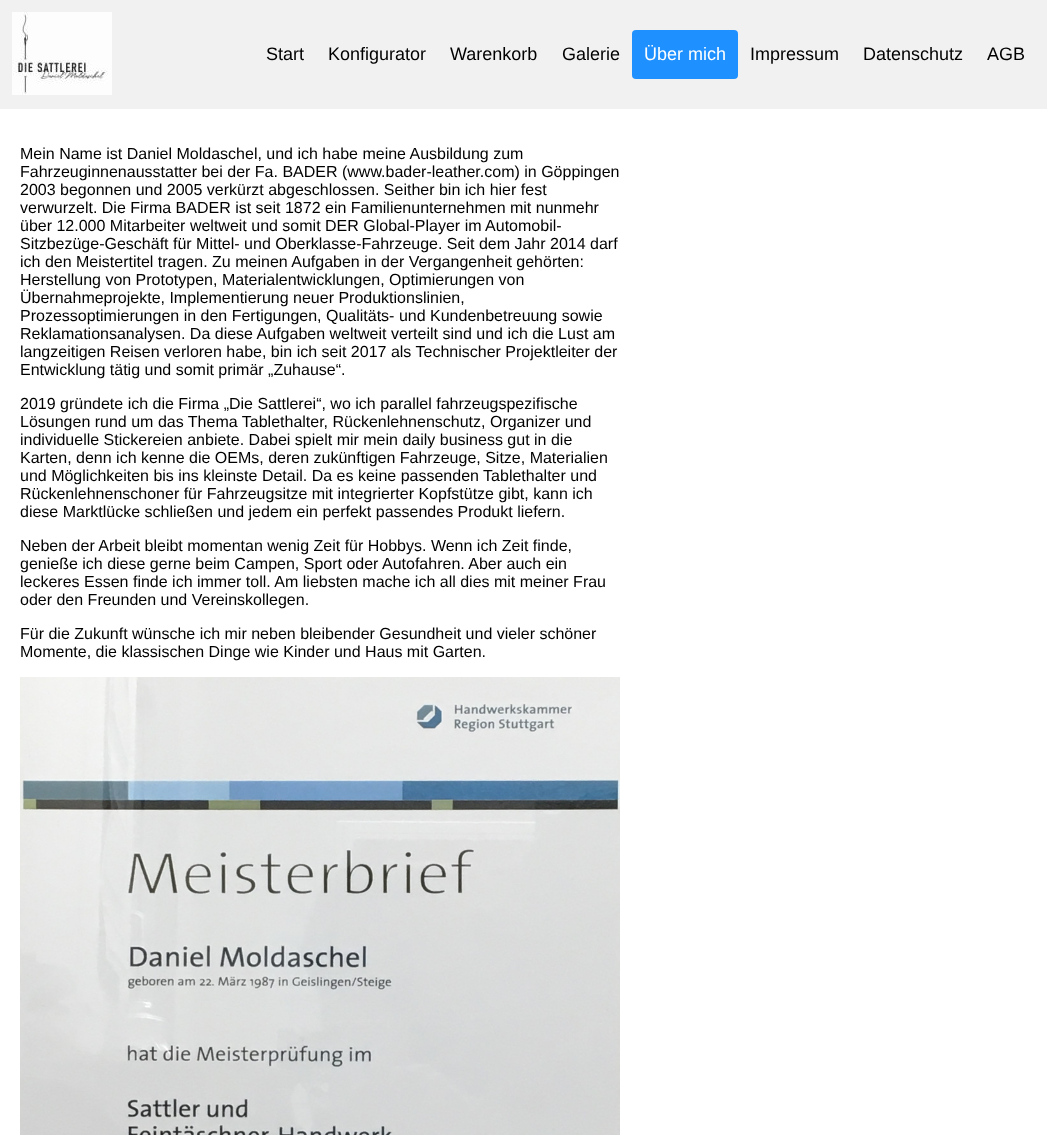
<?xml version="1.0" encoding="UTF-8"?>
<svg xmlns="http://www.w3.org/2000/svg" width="1047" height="1135">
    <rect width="100%" height="100%" fill="#FFFFFF"/>
    <rect x="0" y="0" width="1047" height="109" fill="#F1F1F1"/>
    <image x="12" y="12" width="100" height="83" href="img_01.png"/>
    <text x="266" y="60" font-family="Liberation Sans" font-size="18" fill="#000000">Start</text>
    <text x="328" y="60" font-family="Liberation Sans" font-size="18" fill="#000000">Konfigurator</text>
    <text x="450" y="60" font-family="Liberation Sans" font-size="18" fill="#000000">Warenkorb</text>
    <text x="562" y="60" font-family="Liberation Sans" font-size="18" fill="#000000">Galerie</text>
    <rect x="632" y="30" width="106" height="49" rx="4" fill="#1E90FF"/>
    <text x="644" y="60" font-family="Liberation Sans" font-size="18" fill="#FFFFFF">Über mich</text>
    <text x="750" y="60" font-family="Liberation Sans" font-size="18" fill="#000000">Impressum</text>
    <text x="863" y="60" font-family="Liberation Sans" font-size="18" fill="#000000">Datenschutz</text>
    <text x="987" y="60" font-family="Liberation Sans" font-size="18" fill="#000000">AGB</text>
    <text font-family="Liberation Sans" font-size="16" fill="#000000">
        <tspan x="20" y="159">Mein Name ist Daniel Moldaschel, und ich habe meine Ausbildung zum</tspan>
        <tspan x="20" y="177">Fahrzeuginnenausstatter bei der Fa. BADER (www.bader-leather.com) in Göppingen</tspan>
        <tspan x="20" y="195">2003 begonnen und 2005 verkürzt abgeschlossen. Seither bin ich hier fest</tspan>
        <tspan x="20" y="213">verwurzelt. Die Firma BADER ist seit 1872 ein Familienunternehmen mit nunmehr</tspan>
        <tspan x="20" y="231">über 12.000 Mitarbeiter weltweit und somit DER Global-Player im Automobil-</tspan>
        <tspan x="20" y="249">Sitzbezüge-Geschäft für Mittel- und Oberklasse-Fahrzeuge. Seit dem Jahr 2014 darf</tspan>
        <tspan x="20" y="267">ich den Meistertitel tragen. Zu meinen Aufgaben in der Vergangenheit gehörten:</tspan>
        <tspan x="20" y="285">Herstellung von Prototypen, Materialentwicklungen, Optimierungen von</tspan>
        <tspan x="20" y="303">Übernahmeprojekte, Implementierung neuer Produktionslinien,</tspan>
        <tspan x="20" y="321">Prozessoptimierungen in den Fertigungen, Qualitäts- und Kundenbetreuung sowie</tspan>
        <tspan x="20" y="339">Reklamationsanalysen. Da diese Aufgaben weltweit verteilt sind und ich die Lust am</tspan>
        <tspan x="20" y="357">langzeitigen Reisen verloren habe, bin ich seit 2017 als Technischer Projektleiter der</tspan>
        <tspan x="20" y="375">Entwicklung tätig und somit primär „Zuhause“.</tspan>
    </text>
    <text font-family="Liberation Sans" font-size="16" fill="#000000">
        <tspan x="20" y="409">2019 gründete ich die Firma „Die Sattlerei“, wo ich parallel fahrzeugspezifische</tspan>
        <tspan x="20" y="427">Lösungen rund um das Thema Tablethalter, Rückenlehnenschutz, Organizer und</tspan>
        <tspan x="20" y="445">individuelle Stickereien anbiete. Dabei spielt mir mein daily business gut in die</tspan>
        <tspan x="20" y="463">Karten, denn ich kenne die OEMs, deren zukünftigen Fahrzeuge, Sitze, Materialien</tspan>
        <tspan x="20" y="481">und Möglichkeiten bis ins kleinste Detail. Da es keine passenden Tablethalter und</tspan>
        <tspan x="20" y="499">Rückenlehnenschoner für Fahrzeugsitze mit integrierter Kopfstütze gibt, kann ich</tspan>
        <tspan x="20" y="517">diese Marktlücke schließen und jedem ein perfekt passendes Produkt liefern.</tspan>
    </text>
    <text font-family="Liberation Sans" font-size="16" fill="#000000">
        <tspan x="20" y="551">Neben der Arbeit bleibt momentan wenig Zeit für Hobbys. Wenn ich Zeit finde,</tspan>
        <tspan x="20" y="569">genieße ich diese gerne beim Campen, Sport oder Autofahren. Aber auch ein</tspan>
        <tspan x="20" y="587">leckeres Essen finde ich immer toll. Am liebsten mache ich all dies mit meiner Frau</tspan>
        <tspan x="20" y="605">oder den Freunden und Vereinskollegen.</tspan>
    </text>
    <text font-family="Liberation Sans" font-size="16" fill="#000000">
        <tspan x="20" y="639">Für die Zukunft wünsche ich mir neben bleibender Gesundheit und vieler schöner</tspan>
        <tspan x="20" y="657">Momente, die klassischen Dinge wie Kinder und Haus mit Garten.</tspan>
    </text>
    <image x="20" y="677" width="600" height="458" href="img_02.png"/>
</svg>
